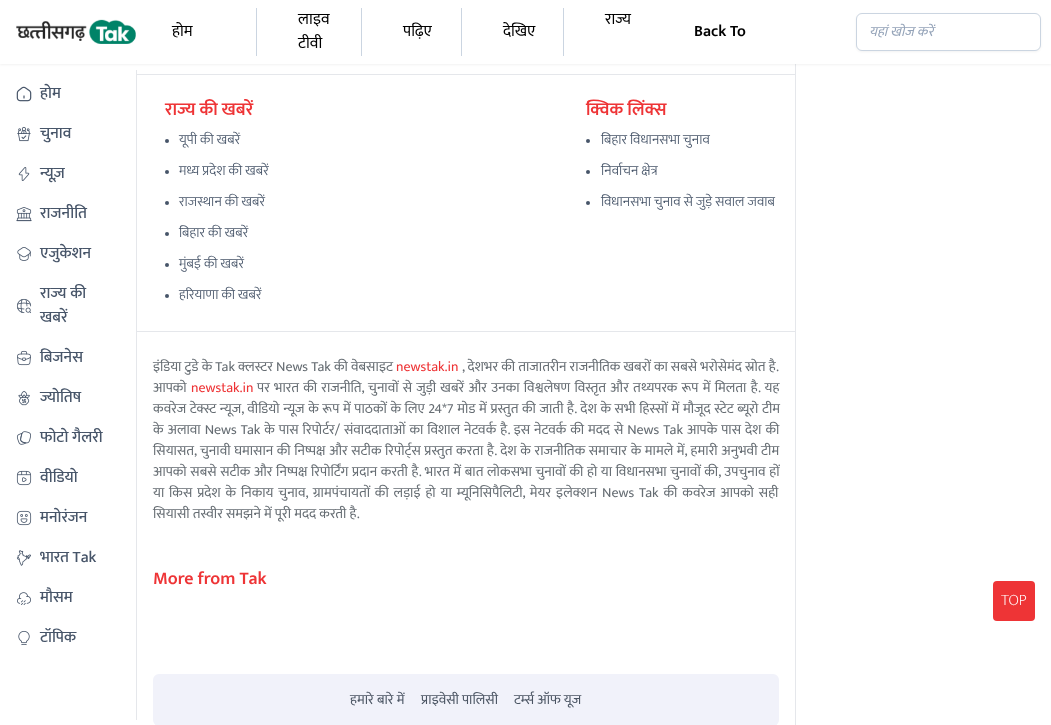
<?xml version="1.0" encoding="UTF-8"?>
<svg xmlns="http://www.w3.org/2000/svg" width="1051" height="725">
    <defs>
        <filter id="blur1" x="-50%" y="-200%" width="200%" height="500%"><feGaussianBlur stdDeviation="1"/></filter>
    </defs>
    <rect width="100%" height="100%" fill="#FFFFFF"/>
    <rect x="795" y="64" width="1" height="661" fill="#E5E7EB"/>
    <rect x="0" y="1" width="1051" height="64" fill="#000000" fill-opacity="0.05" filter="url(#blur1)"/>
    <rect x="0" y="0" width="1051" height="64" fill="#FFFFFF"/>
    <image x="16" y="19" width="120" height="25" href="img_01.png"/>
    <rect x="256" y="8" width="1" height="48" fill="#CBD5E1"/>
    <text font-family="Mukta" font-size="16" fill="#000000">
        <tspan x="298" y="24">लाइव</tspan>
        <tspan x="298" y="48">टीवी</tspan>
    </text>
    <rect x="563" y="8" width="1" height="48" fill="#CBD5E1"/>
    <text x="605" y="24" font-family="Mukta" font-size="16" fill="#000000">राज्य</text>
    <text x="172" y="36" font-family="Mukta" font-size="16" fill="#000000">होम</text>
    <rect x="361" y="8" width="1" height="48" fill="#CBD5E1"/>
    <text x="403" y="36" font-family="Mukta" font-size="16" fill="#000000">पढ़िए</text>
    <rect x="461" y="8" width="1" height="48" fill="#CBD5E1"/>
    <text x="503" y="36" font-family="Mukta" font-size="16" fill="#000000">देखिए</text>
    <text x="694" y="36" font-family="Mukta" font-size="16" font-weight="600" fill="#000000">Back To</text>
    <rect x="856" y="14" width="185" height="38" rx="6" fill="#000000" fill-opacity="0.05" filter="url(#blur1)"/>
    <rect x="856.5" y="13.5" width="184" height="37" rx="5.5" fill="#FFFFFF" stroke="#CBD5E1"/>
    <text x="869" y="36" font-family="Mukta" font-size="14" font-style="italic" fill="#94A3B8">यहां खोज करें</text>
    <rect x="136" y="70" width="1" height="650" fill="#E5E7EB"/>
    <image x="16" y="86" width="16" height="16" href="img_02.png"/>
    <text x="40" y="98" font-family="Mukta" font-size="16" font-weight="500" fill="#475569">होम</text>
    <image x="17" y="126" width="14" height="16" href="img_03.png"/>
    <text x="40" y="138" font-family="Mukta" font-size="16" font-weight="500" fill="#475569">चुनाव</text>
    <image x="18" y="167" width="12" height="14" href="img_04.png"/>
    <text x="40" y="178" font-family="Mukta" font-size="16" font-weight="500" fill="#475569">न्यूज़</text>
    <image x="16" y="207" width="16" height="15" href="img_05.png"/>
    <text x="40" y="218" font-family="Mukta" font-size="16" font-weight="500" fill="#475569">राजनीति</text>
    <image x="17" y="247" width="14" height="14" href="img_06.png"/>
    <text x="40" y="258" font-family="Mukta" font-size="16" font-weight="500" fill="#475569">एजुकेशन</text>
    <image x="16" y="298" width="16" height="16" href="img_07.png"/>
    <text font-family="Mukta" font-size="16" font-weight="500" fill="#475569">
        <tspan x="40" y="298">राज्य की</tspan>
        <tspan x="40" y="322">खबरें</tspan>
    </text>
    <image x="17" y="350" width="14" height="16" href="img_08.png"/>
    <text x="40" y="362" font-family="Mukta" font-size="16" font-weight="500" fill="#475569">बिजनेस</text>
    <image x="18" y="390" width="12" height="16" href="img_09.png"/>
    <text x="40" y="402" font-family="Mukta" font-size="16" font-weight="500" fill="#475569">ज्योतिष</text>
    <image x="16" y="431" width="15" height="14" href="img_10.png"/>
    <text x="40" y="442" font-family="Mukta" font-size="16" font-weight="500" fill="#475569">फोटो गैलरी</text>
    <image x="16" y="470" width="16" height="16" href="img_11.png"/>
    <text x="40" y="482" font-family="Mukta" font-size="16" font-weight="500" fill="#475569">वीडियो</text>
    <image x="16" y="510" width="16" height="16" href="img_12.png"/>
    <text x="40" y="522" font-family="Mukta" font-size="16" font-weight="500" fill="#475569">मनोरंजन</text>
    <image x="16" y="550" width="15" height="16" href="img_13.png"/>
    <text x="40" y="562" font-family="Mukta" font-size="16" font-weight="500" fill="#475569">भारत Tak</text>
    <image x="17" y="592" width="14" height="13" href="img_14.png"/>
    <text x="40" y="602" font-family="Mukta" font-size="16" font-weight="500" fill="#475569">मौसम</text>
    <image x="18" y="630" width="12" height="16" href="img_15.png"/>
    <text x="40" y="642" font-family="Mukta" font-size="16" font-weight="500" fill="#475569">टॉपिक</text>
    <rect x="137" y="74" width="658" height="1" fill="#E5E7EB"/>
    <text x="165" y="115" font-family="Mukta" font-size="18" font-weight="600" fill="#EE3436">राज्य की खबरें</text>
    <circle cx="167" cy="141" r="2" fill="#475569"/>
    <text x="179" y="144" font-family="Mukta" font-size="14" font-weight="300" fill="#475569">यूपी की खबरें</text>
    <circle cx="167" cy="172" r="2" fill="#475569"/>
    <text x="179" y="175" font-family="Mukta" font-size="14" font-weight="300" fill="#475569">मध्य प्रदेश की खबरें</text>
    <circle cx="167" cy="203" r="2" fill="#475569"/>
    <text x="179" y="206" font-family="Mukta" font-size="14" font-weight="300" fill="#475569">राजस्थान की खबरें</text>
    <circle cx="167" cy="234" r="2" fill="#475569"/>
    <text x="179" y="237" font-family="Mukta" font-size="14" font-weight="300" fill="#475569">बिहार की खबरें</text>
    <circle cx="167" cy="265" r="2" fill="#475569"/>
    <text x="179" y="268" font-family="Mukta" font-size="14" font-weight="300" fill="#475569">मुंबई की खबरें</text>
    <circle cx="167" cy="296" r="2" fill="#475569"/>
    <text x="179" y="299" font-family="Mukta" font-size="14" font-weight="300" fill="#475569">हरियाणा की खबरें</text>
    <text x="586" y="115" font-family="Mukta" font-size="18" font-weight="600" fill="#EE3436">क्विक लिंक्स</text>
    <circle cx="588" cy="141" r="2" fill="#475569"/>
    <text x="601" y="144" font-family="Mukta" font-size="14" font-weight="300" fill="#475569">बिहार विधानसभा चुनाव</text>
    <circle cx="588" cy="172" r="2" fill="#475569"/>
    <text x="601" y="175" font-family="Mukta" font-size="14" font-weight="300" fill="#475569">निर्वाचन क्षेत्र</text>
    <circle cx="588" cy="203" r="2" fill="#475569"/>
    <text x="601" y="206" font-family="Mukta" font-size="14" font-weight="300" fill="#475569">विधानसभा चुनाव से जुड़े सवाल जवाब</text>
    <rect x="137" y="331" width="658" height="1" fill="#E5E7EB"/>
    <text x="153" y="371" font-family="Mukta" font-size="14" fill="#666D73">इंडिया टुडे के Tak क्लस्टर News Tak की वेबसाइट</text>
    <text x="396" y="371" font-family="Mukta" font-size="14" fill="#EE3436">newstak.in</text>
    <text x="462" y="371" font-family="Mukta" font-size="14" fill="#666D73">, देशभर की ताजातरीन राजनीतिक खबरों का सबसे भरोसेमंद स्रोत है.</text>
    <text x="153" y="392" font-family="Mukta" font-size="14" fill="#666D73">आपको</text>
    <text x="191" y="392" font-family="Mukta" font-size="14" fill="#EE3436">newstak.in</text>
    <text x="257" y="392" word-spacing="1.1" font-family="Mukta" font-size="14" fill="#666D73">पर भारत की राजनीति, चुनावों से जुड़ी खबरें और उनका विश्वलेषण विस्तृत और तथ्यपरक रूप में मिलता है. यह</text>
    <text font-family="Mukta" font-size="14" fill="#666D73">
        <tspan x="153" y="413" word-spacing="0.5">कवरेज टेक्स्ट न्यूज, वीडियो न्यूज के रूप में पाठकों के लिए 24*7 मोड में प्रस्तुत की जाती है. देश के सभी हिस्सों में मौजूद स्टेट ब्यूरो टीम</tspan>
        <tspan x="153" y="434" word-spacing="0.85">के अलावा News Tak के पास रिपोर्टर/ संवाददाताओं का विशाल नेटवर्क है. इस नेटवर्क की मदद से News Tak आपके पास देश की</tspan>
        <tspan x="153" y="455" word-spacing="0.5">सियासत, चुनावी घमासान की निष्पक्ष और सटीक रिपोर्ट्स प्रस्तुत करता है. देश के राजनीतिक समाचार के मामले में, हमारी अनुभवी टीम</tspan>
        <tspan x="153" y="476" word-spacing="0.5">आपको सबसे सटीक और निष्पक्ष रिपोर्टिंग प्रदान करती है. भारत में बात लोकसभा चुनावों की हो या विधानसभा चुनावों की, उपचुनाव हों</tspan>
        <tspan x="153" y="497" word-spacing="1.75">या किस प्रदेश के निकाय चुनाव, ग्रामपंचायतों की लड़ाई हो या म्यूनिसिपैलिटी, मेयर इलेक्शन News Tak की कवरेज आपको सही</tspan>
        <tspan x="153" y="518">सियासी तस्वीर समझने में पूरी मदद करती है.</tspan>
    </text>
    <text x="153" y="584" font-family="Mukta" font-size="18" font-weight="600" fill="#EE3436">More from Tak</text>
    <rect x="153" y="674" width="626" height="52" rx="6" fill="#F1F2FA"/>
    <text x="350" y="704" font-family="Mukta" font-size="14" fill="#4B5563">हमारे बारे में</text>
    <text x="421" y="704" font-family="Mukta" font-size="14" fill="#4B5563">प्राइवेसी पालिसी</text>
    <text x="514" y="704" font-family="Mukta" font-size="14" fill="#4B5563">टर्म्स ऑफ यूज</text>
    <rect x="993" y="581" width="42" height="40" rx="4" fill="#EE3436"/>
    <text x="1001" y="605" font-family="'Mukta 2'" font-size="16" font-weight="300" fill="#FFFFFF">TOP</text>
</svg>
